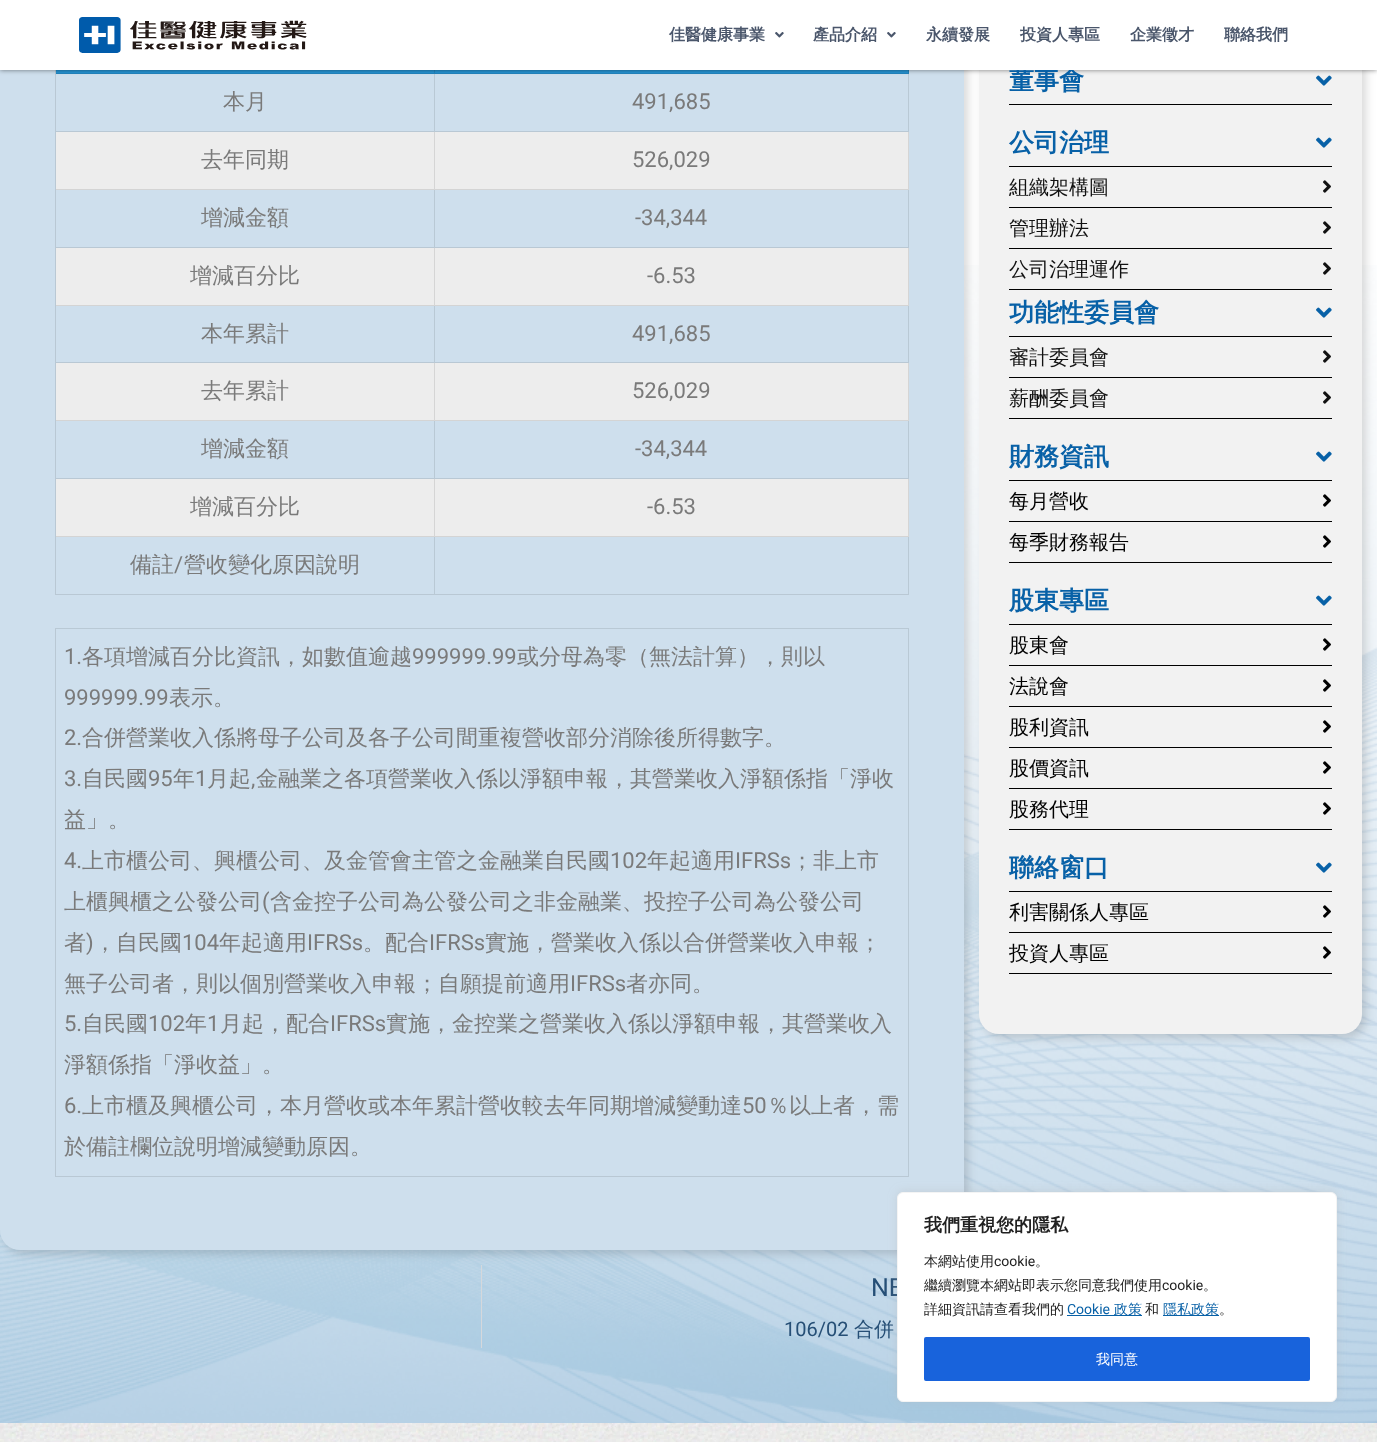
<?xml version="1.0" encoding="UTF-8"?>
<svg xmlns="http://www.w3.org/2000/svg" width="1377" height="1442">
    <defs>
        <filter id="blur1" x="-50%" y="-200%" width="200%" height="500%"><feGaussianBlur stdDeviation="5"/></filter>
        <filter id="blur2" x="-50%" y="-200%" width="200%" height="500%"><feGaussianBlur stdDeviation="2.5"/></filter>
    </defs>
    <rect width="100%" height="100%" fill="#FFFFFF"/>
    <image x="0" y="265" width="1377" height="1158" href="img_01.png"/>
    <rect x="4" y="-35" width="964" height="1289" rx="20" fill="#000000" fill-opacity="0.15" filter="url(#blur1)"/>
    <rect x="0" y="-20" width="964" height="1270" rx="20" fill="#CEDFED"/>
    <path d="M 55 595 V 15 L 56 16 V 595 Z" fill="#000000" fill-opacity="0.1"/>
    <rect x="56" y="70" width="853" height="4" fill="#2695D5"/>
    <path d="M 435 16 V 74 L 434 73 V 16 Z" fill="#2286C0"/>
    <path d="M 435 74 H 56 V 73 H 434 Z" fill="#000000" fill-opacity="0.1"/>
    <path d="M 909 16 V 74 L 908 73 V 16 Z" fill="#2286C0"/>
    <path d="M 909 74 H 435 V 73 H 908 Z" fill="#000000" fill-opacity="0.1"/>
    <path d="M 435 74 V 132 L 434 131 V 74 Z" fill="#B9C9D5"/>
    <path d="M 909 74 V 132 L 908 131 V 74 Z" fill="#B9C9D5"/>
    <rect x="983" y="-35" width="383" height="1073" rx="20" fill="#000000" fill-opacity="0.15" filter="url(#blur1)"/>
    <rect x="979" y="-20" width="383" height="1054" rx="20" fill="#F2F2F2"/>
    <image x="1316" y="75" width="16" height="11" href="img_04.png"/>
    <rect x="0" y="0" width="1377" height="70" fill="#000000" fill-opacity="0.5" filter="url(#blur2)"/>
    <text x="1009" y="89" font-family="WenQuanYi Zen Hei" font-size="25" font-weight="700" fill="#0861A7">董事會</text>
    <rect x="0" y="0" width="1377" height="70" fill="#FFFFFF"/>
    <image x="79" y="17" width="228" height="36" href="img_02.png"/>
    <text x="669" y="40" font-family="WenQuanYi Zen Hei" font-size="16" font-weight="700" fill="#4A566B">佳醫健康事業</text>
    <image x="775" y="32" width="9" height="6" href="img_03.png"/>
    <text x="813" y="40" font-family="WenQuanYi Zen Hei" font-size="16" font-weight="700" fill="#4A566B">產品介紹</text>
    <image x="887" y="32" width="9" height="6" href="img_03.png"/>
    <text x="926" y="40" font-family="WenQuanYi Zen Hei" font-size="16" font-weight="700" fill="#4A566B">永續發展</text>
    <text x="1020" y="40" font-family="WenQuanYi Zen Hei" font-size="16" font-weight="700" fill="#4A566B">投資人專區</text>
    <text x="1130" y="40" font-family="WenQuanYi Zen Hei" font-size="16" font-weight="700" fill="#4A566B">企業徵才</text>
    <text x="1224" y="40" font-family="WenQuanYi Zen Hei" font-size="16" font-weight="700" fill="#4A566B">聯絡我們</text>
    <path d="M 435 132 H 56 V 131 H 434 Z" fill="#000000" fill-opacity="0.1"/>
    <text x="223" y="109" font-family="WenQuanYi Zen Hei" font-size="22" font-weight="500" fill="#7A7A7A">本月</text>
    <path d="M 909 132 H 435 V 131 H 908 Z" fill="#000000" fill-opacity="0.1"/>
    <text x="632" y="109" font-family="Roboto" font-size="22" fill="#7A7A7A">491,685</text>
    <rect x="56" y="132" width="853" height="58" fill="#EDEDED"/>
    <path d="M 435 132 V 190 L 434 189 V 132 Z" fill="#D5D5D5"/>
    <path d="M 435 190 H 56 V 189 H 434 Z" fill="#000000" fill-opacity="0.1"/>
    <text x="201" y="167" font-family="WenQuanYi Zen Hei" font-size="22" font-weight="500" fill="#7A7A7A">去年同期</text>
    <path d="M 909 132 V 190 L 908 189 V 132 Z" fill="#D5D5D5"/>
    <path d="M 909 190 H 435 V 189 H 908 Z" fill="#000000" fill-opacity="0.1"/>
    <text x="632" y="167" font-family="Roboto" font-size="22" fill="#7A7A7A">526,029</text>
    <path d="M 435 190 V 248 L 434 247 V 190 Z" fill="#B9C9D5"/>
    <path d="M 435 248 H 56 V 247 H 434 Z" fill="#000000" fill-opacity="0.1"/>
    <text x="201" y="225" font-family="WenQuanYi Zen Hei" font-size="22" font-weight="500" fill="#7A7A7A">增減金額</text>
    <path d="M 909 190 V 248 L 908 247 V 190 Z" fill="#B9C9D5"/>
    <path d="M 909 248 H 435 V 247 H 908 Z" fill="#000000" fill-opacity="0.1"/>
    <text x="635" y="225" font-family="Roboto" font-size="22" fill="#7A7A7A">-34,344</text>
    <rect x="56" y="248" width="853" height="58" fill="#EDEDED"/>
    <path d="M 435 248 V 306 L 434 305 V 248 Z" fill="#D5D5D5"/>
    <path d="M 435 306 H 56 V 305 H 434 Z" fill="#000000" fill-opacity="0.1"/>
    <text x="190" y="283" font-family="WenQuanYi Zen Hei" font-size="22" font-weight="500" fill="#7A7A7A">增減百分比</text>
    <path d="M 909 248 V 306 L 908 305 V 248 Z" fill="#D5D5D5"/>
    <path d="M 909 306 H 435 V 305 H 908 Z" fill="#000000" fill-opacity="0.1"/>
    <text x="647" y="283" font-family="Roboto" font-size="22" fill="#7A7A7A">-6.53</text>
    <path d="M 435 306 V 363 L 434 362 V 306 Z" fill="#B9C9D5"/>
    <path d="M 435 363 H 56 V 362 H 434 Z" fill="#000000" fill-opacity="0.1"/>
    <text x="201" y="341" font-family="WenQuanYi Zen Hei" font-size="22" font-weight="500" fill="#7A7A7A">本年累計</text>
    <path d="M 909 306 V 363 L 908 362 V 306 Z" fill="#B9C9D5"/>
    <path d="M 909 363 H 435 V 362 H 908 Z" fill="#000000" fill-opacity="0.1"/>
    <text x="632" y="341" font-family="Roboto" font-size="22" fill="#7A7A7A">491,685</text>
    <rect x="56" y="363" width="853" height="58" fill="#EDEDED"/>
    <path d="M 435 363 V 421 L 434 420 V 363 Z" fill="#D5D5D5"/>
    <path d="M 435 421 H 56 V 420 H 434 Z" fill="#000000" fill-opacity="0.1"/>
    <text x="201" y="398" font-family="WenQuanYi Zen Hei" font-size="22" font-weight="500" fill="#7A7A7A">去年累計</text>
    <path d="M 909 363 V 421 L 908 420 V 363 Z" fill="#D5D5D5"/>
    <path d="M 909 421 H 435 V 420 H 908 Z" fill="#000000" fill-opacity="0.1"/>
    <text x="632" y="398" font-family="Roboto" font-size="22" fill="#7A7A7A">526,029</text>
    <path d="M 435 421 V 479 L 434 478 V 421 Z" fill="#B9C9D5"/>
    <path d="M 435 479 H 56 V 478 H 434 Z" fill="#000000" fill-opacity="0.1"/>
    <text x="201" y="456" font-family="WenQuanYi Zen Hei" font-size="22" font-weight="500" fill="#7A7A7A">增減金額</text>
    <path d="M 909 421 V 479 L 908 478 V 421 Z" fill="#B9C9D5"/>
    <path d="M 909 479 H 435 V 478 H 908 Z" fill="#000000" fill-opacity="0.1"/>
    <text x="635" y="456" font-family="Roboto" font-size="22" fill="#7A7A7A">-34,344</text>
    <rect x="56" y="479" width="853" height="58" fill="#EDEDED"/>
    <path d="M 435 479 V 537 L 434 536 V 479 Z" fill="#D5D5D5"/>
    <path d="M 435 537 H 56 V 536 H 434 Z" fill="#000000" fill-opacity="0.1"/>
    <text x="190" y="514" font-family="WenQuanYi Zen Hei" font-size="22" font-weight="500" fill="#7A7A7A">增減百分比</text>
    <path d="M 909 479 V 537 L 908 536 V 479 Z" fill="#D5D5D5"/>
    <path d="M 909 537 H 435 V 536 H 908 Z" fill="#000000" fill-opacity="0.1"/>
    <text x="647" y="514" font-family="Roboto" font-size="22" fill="#7A7A7A">-6.53</text>
    <path d="M 435 537 V 595 L 434 594 V 537 Z" fill="#B9C9D5"/>
    <path d="M 435 595 H 56 V 594 H 434 Z" fill="#000000" fill-opacity="0.1"/>
    <text x="130" y="572" font-family="WenQuanYi Zen Hei" font-size="22" font-weight="500" fill="#7A7A7A">備註</text>
    <text x="174" y="572" font-family="Roboto" font-size="22" fill="#7A7A7A">/</text>
    <text x="184" y="572" font-family="WenQuanYi Zen Hei" font-size="22" font-weight="500" fill="#7A7A7A">營收變化原因說明</text>
    <path d="M 909 537 V 595 L 908 594 V 537 Z" fill="#B9C9D5"/>
    <path d="M 909 595 H 435 V 594 H 908 Z" fill="#000000" fill-opacity="0.1"/>
    <path d="M 55 628 H 909 V 629 H 56 Z" fill="#B9C9D5"/>
    <path d="M 55 1177 V 628 L 56 629 V 1177 Z" fill="#000000" fill-opacity="0.1"/>
    <path d="M 909 629 V 1177 L 908 1176 V 629 Z" fill="#B9C9D5"/>
    <path d="M 909 1177 H 56 V 1176 H 908 Z" fill="#000000" fill-opacity="0.1"/>
    <text x="64" y="664" font-family="Roboto" font-size="22" fill="#7A7A7A">1.</text>
    <text x="82" y="664" font-family="WenQuanYi Zen Hei" font-size="22" font-weight="500" fill="#7A7A7A">各項增減百分比資訊，如數值逾越</text>
    <text x="412" y="664" font-family="Roboto" font-size="22" fill="#7A7A7A">999999.99</text>
    <text x="517" y="664" font-family="WenQuanYi Zen Hei" font-size="22" font-weight="500" fill="#7A7A7A">或分母為零（無法計算），則以</text>
    <text x="64" y="705" font-family="Roboto" font-size="22" fill="#7A7A7A">999999.99</text>
    <text x="169" y="705" font-family="WenQuanYi Zen Hei" font-size="22" font-weight="500" fill="#7A7A7A">表示。</text>
    <text x="64" y="745" font-family="Roboto" font-size="22" fill="#7A7A7A">2.</text>
    <text x="82" y="745" font-family="WenQuanYi Zen Hei" font-size="22" font-weight="500" fill="#7A7A7A">合併營業收入係將母子公司及各子公司間重複營收部分消除後所得數字。</text>
    <text x="64" y="786" font-family="Roboto" font-size="22" fill="#7A7A7A">3.</text>
    <text x="82" y="786" font-family="WenQuanYi Zen Hei" font-size="22" font-weight="500" fill="#7A7A7A">自民國</text>
    <text x="148" y="786" font-family="Roboto" font-size="22" fill="#7A7A7A">95</text>
    <text x="173" y="786" font-family="WenQuanYi Zen Hei" font-size="22" font-weight="500" fill="#7A7A7A">年</text>
    <text x="195" y="786" font-family="Roboto" font-size="22" fill="#7A7A7A">1</text>
    <text x="207" y="786" font-family="WenQuanYi Zen Hei" font-size="22" font-weight="500" fill="#7A7A7A">月起</text>
    <text x="251" y="786" font-family="Roboto" font-size="22" fill="#7A7A7A">,</text>
    <text x="256" y="786" font-family="WenQuanYi Zen Hei" font-size="22" font-weight="500" fill="#7A7A7A">金融業之各項營業收入係以淨額申報，其營業收入淨額係指「淨收</text>
    <text x="64" y="827" font-family="WenQuanYi Zen Hei" font-size="22" font-weight="500" fill="#7A7A7A">益」。</text>
    <text x="64" y="868" font-family="Roboto" font-size="22" fill="#7A7A7A">4.</text>
    <text x="82" y="868" font-family="WenQuanYi Zen Hei" font-size="22" font-weight="500" fill="#7A7A7A">上市櫃公司、興櫃公司、及金管會主管之金融業自民國</text>
    <text x="610" y="868" font-family="Roboto" font-size="22" fill="#7A7A7A">102</text>
    <text x="647" y="868" font-family="WenQuanYi Zen Hei" font-size="22" font-weight="500" fill="#7A7A7A">年起適用</text>
    <text x="735" y="868" font-family="Roboto" font-size="22" fill="#7A7A7A">IFRSs</text>
    <text x="791" y="868" font-family="WenQuanYi Zen Hei" font-size="22" font-weight="500" fill="#7A7A7A">；非上市</text>
    <text x="64" y="909" font-family="WenQuanYi Zen Hei" font-size="22" font-weight="500" fill="#7A7A7A">上櫃興櫃之公發公司</text>
    <text x="262" y="909" font-family="Roboto" font-size="22" fill="#7A7A7A">(</text>
    <text x="270" y="909" font-family="WenQuanYi Zen Hei" font-size="22" font-weight="500" fill="#7A7A7A">含金控子公司為公發公司之非金融業、投控子公司為公發公司</text>
    <text x="64" y="950" font-family="WenQuanYi Zen Hei" font-size="22" font-weight="500" fill="#7A7A7A">者</text>
    <text x="86" y="950" font-family="Roboto" font-size="22" fill="#7A7A7A">)</text>
    <text x="94" y="950" font-family="WenQuanYi Zen Hei" font-size="22" font-weight="500" fill="#7A7A7A">，自民國</text>
    <text x="182" y="950" font-family="Roboto" font-size="22" fill="#7A7A7A">104</text>
    <text x="219" y="950" font-family="WenQuanYi Zen Hei" font-size="22" font-weight="500" fill="#7A7A7A">年起適用</text>
    <text x="307" y="950" font-family="Roboto" font-size="22" fill="#7A7A7A">IFRSs</text>
    <text x="363" y="950" font-family="WenQuanYi Zen Hei" font-size="22" font-weight="500" fill="#7A7A7A">。配合</text>
    <text x="429" y="950" font-family="Roboto" font-size="22" fill="#7A7A7A">IFRSs</text>
    <text x="485" y="950" font-family="WenQuanYi Zen Hei" font-size="22" font-weight="500" fill="#7A7A7A">實施，營業收入係以合併營業收入申報；</text>
    <text x="64" y="991" font-family="WenQuanYi Zen Hei" font-size="22" font-weight="500" fill="#7A7A7A">無子公司者，則以個別營業收入申報；自願提前適用</text>
    <text x="570" y="991" font-family="Roboto" font-size="22" fill="#7A7A7A">IFRSs</text>
    <text x="626" y="991" font-family="WenQuanYi Zen Hei" font-size="22" font-weight="500" fill="#7A7A7A">者亦同。</text>
    <text x="64" y="1031" font-family="Roboto" font-size="22" fill="#7A7A7A">5.</text>
    <text x="82" y="1031" font-family="WenQuanYi Zen Hei" font-size="22" font-weight="500" fill="#7A7A7A">自民國</text>
    <text x="148" y="1031" font-family="Roboto" font-size="22" fill="#7A7A7A">102</text>
    <text x="185" y="1031" font-family="WenQuanYi Zen Hei" font-size="22" font-weight="500" fill="#7A7A7A">年</text>
    <text x="207" y="1031" font-family="Roboto" font-size="22" fill="#7A7A7A">1</text>
    <text x="220" y="1031" font-family="WenQuanYi Zen Hei" font-size="22" font-weight="500" fill="#7A7A7A">月起，配合</text>
    <text x="330" y="1031" font-family="Roboto" font-size="22" fill="#7A7A7A">IFRSs</text>
    <text x="386" y="1031" font-family="WenQuanYi Zen Hei" font-size="22" font-weight="500" fill="#7A7A7A">實施，金控業之營業收入係以淨額申報，其營業收入</text>
    <text x="64" y="1072" font-family="WenQuanYi Zen Hei" font-size="22" font-weight="500" fill="#7A7A7A">淨額係指「淨收益」。</text>
    <text x="64" y="1113" font-family="Roboto" font-size="22" fill="#7A7A7A">6.</text>
    <text x="82" y="1113" font-family="WenQuanYi Zen Hei" font-size="22" font-weight="500" fill="#7A7A7A">上市櫃及興櫃公司，本月營收或本年累計營收較去年同期增減變動達</text>
    <text x="742" y="1113" font-family="Roboto" font-size="22" fill="#7A7A7A">50</text>
    <text x="767" y="1113" font-family="WenQuanYi Zen Hei" font-size="22" font-weight="500" fill="#7A7A7A">％以上者，需</text>
    <text x="64" y="1154" font-family="WenQuanYi Zen Hei" font-size="22" font-weight="500" fill="#7A7A7A">於備註欄位說明增減變動原因。</text>
    <rect x="481" y="1265" width="1" height="83" fill="#D5D8DC"/>
    <text x="871" y="1296" font-family="Roboto" font-size="25" fill="#264F76">NE</text>
    <text x="784" y="1336" font-family="Roboto" font-size="20" fill="#264F76">106/02</text>
    <text x="854" y="1336" font-family="WenQuanYi Zen Hei" font-size="20" font-weight="500" fill="#264F76">合併</text>
    <rect x="1009" y="104" width="323" height="1" fill="#000000"/>
    <rect x="1009" y="166" width="323" height="1" fill="#000000"/>
    <text x="1009" y="151" font-family="WenQuanYi Zen Hei" font-size="25" font-weight="700" fill="#0861A7">公司治理</text>
    <image x="1316" y="137" width="16" height="11" href="img_04.png"/>
    <rect x="1009" y="207" width="323" height="1" fill="#000000"/>
    <text x="1009" y="194" font-family="WenQuanYi Zen Hei" font-size="20" font-weight="500" fill="#111111">組織架構圖</text>
    <image x="1323" y="180" width="8" height="13" href="img_05.png"/>
    <rect x="1009" y="248" width="323" height="1" fill="#000000"/>
    <text x="1009" y="235" font-family="WenQuanYi Zen Hei" font-size="20" font-weight="500" fill="#111111">管理辦法</text>
    <image x="1323" y="221" width="8" height="13" href="img_05.png"/>
    <rect x="1009" y="289" width="323" height="1" fill="#000000"/>
    <text x="1009" y="276" font-family="WenQuanYi Zen Hei" font-size="20" font-weight="500" fill="#111111">公司治理運作</text>
    <image x="1323" y="262" width="8" height="13" href="img_05.png"/>
    <rect x="1009" y="336" width="323" height="1" fill="#000000"/>
    <text x="1009" y="321" font-family="WenQuanYi Zen Hei" font-size="25" font-weight="700" fill="#0861A7">功能性委員會</text>
    <image x="1316" y="307" width="16" height="11" href="img_04.png"/>
    <rect x="1009" y="377" width="323" height="1" fill="#000000"/>
    <text x="1009" y="364" font-family="WenQuanYi Zen Hei" font-size="20" font-weight="500" fill="#111111">審計委員會</text>
    <image x="1323" y="350" width="8" height="13" href="img_05.png"/>
    <rect x="1009" y="418" width="323" height="1" fill="#000000"/>
    <text x="1009" y="405" font-family="WenQuanYi Zen Hei" font-size="20" font-weight="500" fill="#111111">薪酬委員會</text>
    <image x="1323" y="391" width="8" height="13" href="img_05.png"/>
    <rect x="1009" y="480" width="323" height="1" fill="#000000"/>
    <text x="1009" y="465" font-family="WenQuanYi Zen Hei" font-size="25" font-weight="700" fill="#0861A7">財務資訊</text>
    <image x="1316" y="451" width="16" height="11" href="img_04.png"/>
    <rect x="1009" y="521" width="323" height="1" fill="#000000"/>
    <text x="1009" y="508" font-family="WenQuanYi Zen Hei" font-size="20" font-weight="500" fill="#000000">每月營收</text>
    <image x="1323" y="494" width="8" height="13" href="img_06.png"/>
    <rect x="1009" y="562" width="323" height="1" fill="#000000"/>
    <text x="1009" y="549" font-family="WenQuanYi Zen Hei" font-size="20" font-weight="500" fill="#000000">每季財務報告</text>
    <image x="1323" y="535" width="8" height="13" href="img_06.png"/>
    <rect x="1009" y="624" width="323" height="1" fill="#000000"/>
    <text x="1009" y="609" font-family="WenQuanYi Zen Hei" font-size="25" font-weight="700" fill="#0861A7">股東專區</text>
    <image x="1316" y="595" width="16" height="11" href="img_04.png"/>
    <rect x="1009" y="665" width="323" height="1" fill="#000000"/>
    <text x="1009" y="652" font-family="WenQuanYi Zen Hei" font-size="20" font-weight="500" fill="#000000">股東會</text>
    <image x="1323" y="638" width="8" height="13" href="img_06.png"/>
    <rect x="1009" y="706" width="323" height="1" fill="#000000"/>
    <text x="1009" y="693" font-family="WenQuanYi Zen Hei" font-size="20" font-weight="500" fill="#000000">法說會</text>
    <image x="1323" y="679" width="8" height="13" href="img_06.png"/>
    <rect x="1009" y="747" width="323" height="1" fill="#000000"/>
    <text x="1009" y="734" font-family="WenQuanYi Zen Hei" font-size="20" font-weight="500" fill="#000000">股利資訊</text>
    <image x="1323" y="720" width="8" height="13" href="img_06.png"/>
    <rect x="1009" y="788" width="323" height="1" fill="#000000"/>
    <text x="1009" y="775" font-family="WenQuanYi Zen Hei" font-size="20" font-weight="500" fill="#000000">股價資訊</text>
    <image x="1323" y="761" width="8" height="13" href="img_06.png"/>
    <rect x="1009" y="829" width="323" height="1" fill="#000000"/>
    <text x="1009" y="816" font-family="WenQuanYi Zen Hei" font-size="20" font-weight="500" fill="#000000">股務代理</text>
    <image x="1323" y="802" width="8" height="13" href="img_06.png"/>
    <rect x="1009" y="891" width="323" height="1" fill="#000000"/>
    <text x="1009" y="876" font-family="WenQuanYi Zen Hei" font-size="25" font-weight="700" fill="#0861A7">聯絡窗口</text>
    <image x="1316" y="862" width="16" height="11" href="img_04.png"/>
    <rect x="1009" y="932" width="323" height="1" fill="#000000"/>
    <text x="1009" y="919" font-family="WenQuanYi Zen Hei" font-size="20" font-weight="500" fill="#000000">利害關係人專區</text>
    <image x="1323" y="905" width="8" height="13" href="img_06.png"/>
    <rect x="1009" y="973" width="323" height="1" fill="#000000"/>
    <text x="1009" y="960" font-family="WenQuanYi Zen Hei" font-size="20" font-weight="500" fill="#000000">投資人專區</text>
    <image x="1323" y="946" width="8" height="13" href="img_06.png"/>
    <image x="0" y="1423" width="1377" height="19" href="img_07.png"/>
    <rect x="897" y="1191" width="440" height="210" rx="6" fill="#ACABAB" fill-opacity="0.3" filter="url(#blur1)"/>
    <rect x="897.5" y="1192.5" width="439" height="209" rx="5.5" fill="#FFFFFF" stroke="#F4F4F4"/>
    <text x="924" y="1231" font-family="WenQuanYi Zen Hei" font-size="18" font-weight="700" fill="#212121">我們重視您的隱私</text>
    <text x="924" y="1266" font-family="WenQuanYi Zen Hei" font-size="14" font-weight="500" fill="#212121">本網站使用</text>
    <text x="994" y="1266" font-family="Roboto" font-size="14" fill="#212121">cookie</text>
    <text x="1035" y="1266" font-family="WenQuanYi Zen Hei" font-size="14" font-weight="500" fill="#212121">。</text>
    <text x="924" y="1290" font-family="WenQuanYi Zen Hei" font-size="14" font-weight="500" fill="#212121">繼續瀏覽本網站即表示您同意我們使用</text>
    <text x="1162" y="1290" font-family="Roboto" font-size="14" fill="#212121">cookie</text>
    <text x="1203" y="1290" font-family="WenQuanYi Zen Hei" font-size="14" font-weight="500" fill="#212121">。</text>
    <text x="924" y="1314" font-family="WenQuanYi Zen Hei" font-size="14" font-weight="500" fill="#212121">詳細資訊請查看我們的</text>
    <text x="1067" y="1314" font-family="Roboto" font-size="14" fill="#0861A7">Cookie</text>
    <rect x="1067" y="1315" width="75" height="1" fill="#0861A7"/>
    <text x="1114" y="1314" font-family="WenQuanYi Zen Hei" font-size="14" font-weight="500" fill="#0861A7">政策</text>
    <text x="1145" y="1314" font-family="WenQuanYi Zen Hei" font-size="14" font-weight="500" fill="#212121">和</text>
    <rect x="1163" y="1315" width="56" height="1" fill="#0861A7"/>
    <text x="1163" y="1314" font-family="WenQuanYi Zen Hei" font-size="14" font-weight="500" fill="#0861A7">隱私政策</text>
    <text x="1219" y="1314" font-family="WenQuanYi Zen Hei" font-size="14" font-weight="500" fill="#212121">。</text>
    <rect x="925" y="1338" width="384" height="42" rx="1" fill="#1863DC" stroke="#1863DC" stroke-width="2"/>
    <text x="1096" y="1364" font-family="WenQuanYi Zen Hei" font-size="14" font-weight="500" fill="#FFFFFF">我同意</text>
</svg>
